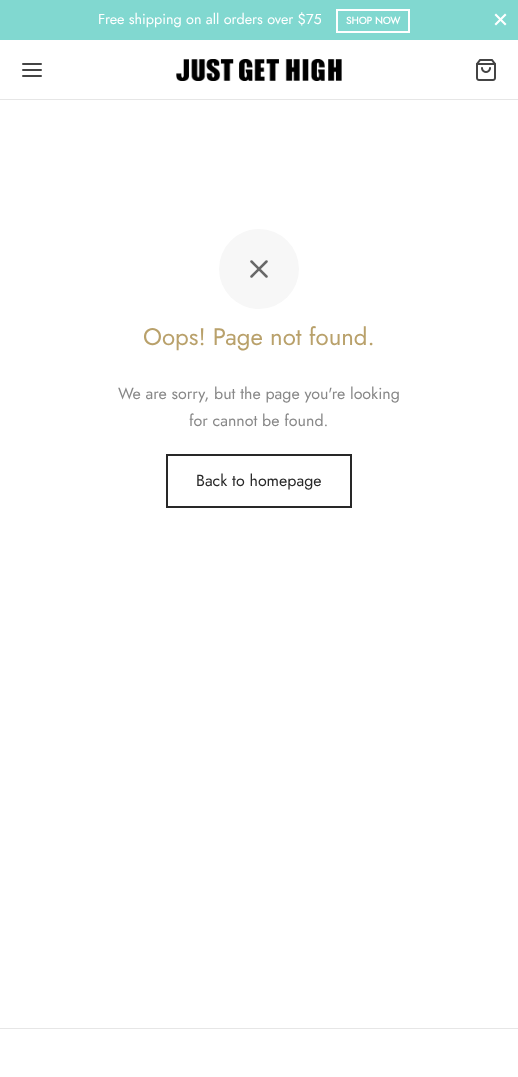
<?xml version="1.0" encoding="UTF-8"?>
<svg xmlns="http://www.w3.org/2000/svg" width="518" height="1077">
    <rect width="100%" height="100%" fill="#FFFFFF"/>
    <rect x="0" y="0" width="518" height="40" fill="#81D8D0"/>
    <text x="98" y="24" font-family="Jost" font-size="14.4" fill="#FFFFFF">Free shipping on all orders over $75</text>
    <rect x="337" y="10" width="72" height="22" fill="none" stroke="#FFFFFF" stroke-width="2"/>
    <text x="346" y="24" font-family="Jost" font-size="10" font-weight="700" fill="#FFFFFF">SHOP NOW</text>
    <path d="M 496 13.5 L 506.5 24 L 505 25.5 L 494.5 15 Z" fill="#FFFFFF"/>
    <path d="M 494.5 24 L 505 13.5 L 506.5 15 L 496 25.5 Z" fill="#FFFFFF"/>
    <path d="M 23 70 H 41 M 23 64 H 41 M 23 76 H 41" fill="none" stroke="#444444" stroke-width="2" stroke-linecap="round" stroke-linejoin="round"/>
    <image x="176" y="59" width="166" height="22" href="img_01.png"/>
    <image x="476" y="59" width="20" height="22" href="img_02.png"/>
    <rect x="0" y="99" width="518" height="1" fill="#E6E6E6"/>
    <circle cx="259" cy="269" r="40" fill="#F7F7F7"/>
    <path d="M 266.5 261.5 L 251.5 276.5 M 251.5 261.5 L 266.5 276.5" fill="none" stroke="#686868" stroke-width="2.5" stroke-linecap="round" stroke-linejoin="round"/>
    <text x="143" y="345" font-family="Jost" font-size="24" fill="#B9A16B">Oops! Page not found.</text>
    <text x="118" y="399" font-family="Jost" font-size="16" fill="#888888">We are sorry, but the page you're looking</text>
    <text x="189" y="426" font-family="Jost" font-size="16" fill="#888888">for cannot be found.</text>
    <rect x="167" y="455" width="184" height="52" fill="none" stroke="#282828" stroke-width="2"/>
    <text x="196" y="486" font-family="Jost" font-size="16" fill="#282828">Back to homepage</text>
    <rect x="0" y="1028" width="518" height="1" fill="#E6E6E6"/>
</svg>
